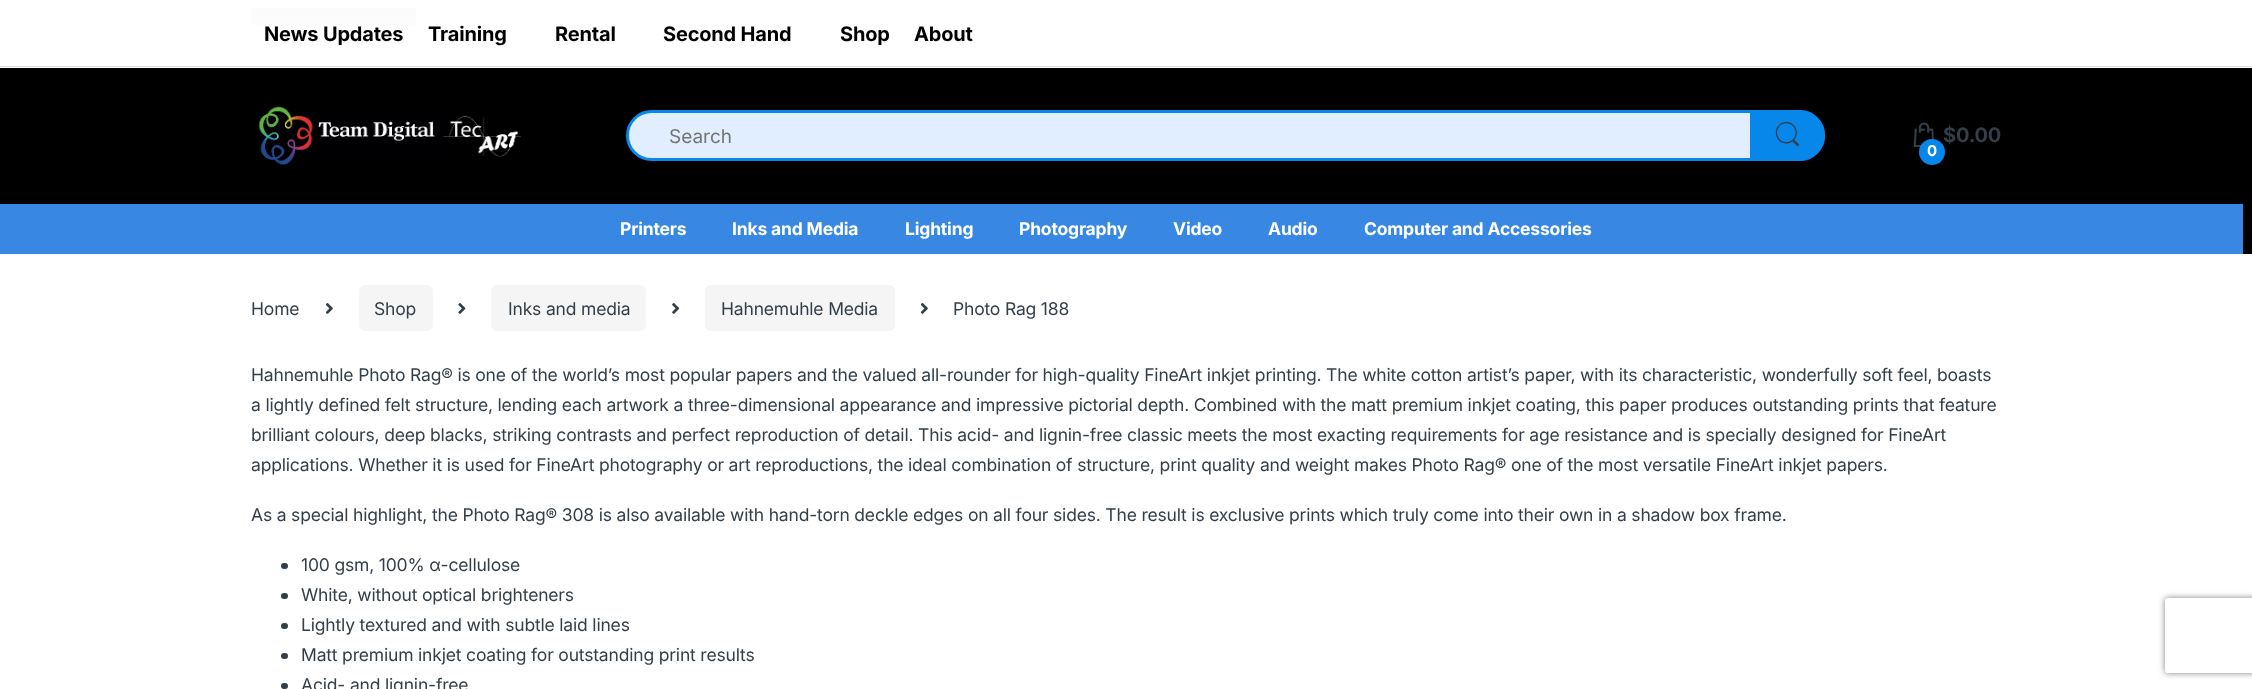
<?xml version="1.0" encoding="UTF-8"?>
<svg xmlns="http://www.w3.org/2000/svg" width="2252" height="689">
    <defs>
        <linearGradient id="g1" gradientUnits="userSpaceOnUse" x1="334" y1="7.5" x2="334" y2="58"><stop offset="0" stop-color="#FBFBFB"/><stop offset="1" stop-color="#FFFFFF"/></linearGradient>
        <clipPath id="clip1"><path d="M 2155 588 H 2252 V 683 H 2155 Z M 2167.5 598 H 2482.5 C 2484 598 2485 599 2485 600.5 V 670.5 C 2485 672 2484 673 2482.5 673 H 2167.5 C 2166 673 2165 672 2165 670.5 V 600.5 C 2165 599 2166 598 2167.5 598 Z" clip-rule="evenodd"/></clipPath>
        <filter id="blur1" x="-50%" y="-200%" width="200%" height="500%"><feGaussianBlur stdDeviation="3"/></filter>
    </defs>
    <rect width="100%" height="100%" fill="#FFFFFF"/>
    <rect x="0" y="66" width="2252" height="1" fill="#DDDDDD"/>
    <rect x="251" y="8" width="165" height="18" fill="url(#g1)"/>
    <text x="264" y="41" font-family="Inter" font-size="20" font-weight="700" letter-spacing="-0.18" fill="#000000">News Updates</text>
    <text x="428" y="41" font-family="Inter" font-size="20" font-weight="700" letter-spacing="-0.18" fill="#000000">Training</text>
    <text x="555" y="41" font-family="Inter" font-size="20" font-weight="700" letter-spacing="-0.18" fill="#000000">Rental</text>
    <text x="663" y="41" font-family="Inter" font-size="20" font-weight="700" letter-spacing="-0.18" fill="#000000">Second Hand</text>
    <text x="840" y="41" font-family="Inter" font-size="20" font-weight="700" letter-spacing="-0.18" fill="#000000">Shop</text>
    <text x="914" y="41" font-family="Inter" font-size="20" font-weight="700" letter-spacing="-0.18" fill="#000000">About</text>
    <rect x="0" y="68" width="2252" height="186" fill="#000000"/>
    <image x="258" y="106" width="263" height="60" href="img_01.png"/>
    <rect x="627.5" y="111.5" width="1196" height="48" rx="24" fill="#E1EEFF" stroke="#0787EA" stroke-width="3"/>
    <text x="669" y="143" font-family="Inter" font-size="19" fill="#757575">Search</text>
    <path d="M 1750 110 H 1799.5 C 1813.5 110 1825 121.5 1825 135.5 C 1825 149.5 1813.5 161 1799.5 161 H 1750 Z" fill="#0787EA"/>
    <image x="1775" y="121" width="25" height="26" href="img_02.png"/>
    <image x="1913" y="122" width="21" height="25" href="img_03.png"/>
    <text x="1943" y="142" font-family="Inter" font-size="20" font-weight="700" letter-spacing="-0.18" fill="#333E48">$0.00</text>
    <circle cx="1932" cy="152" r="13" fill="#0787EA"/>
    <text x="1927" y="156" font-family="Inter" font-size="15" font-weight="700" letter-spacing="-0.18" fill="#FFFFFF">0</text>
    <rect x="0" y="204" width="2243" height="50" fill="#3888E3"/>
    <text x="620" y="235" font-family="Inter" font-size="17.5" font-weight="700" letter-spacing="-0.18" fill="#FFFFFF">Printers</text>
    <text x="732" y="235" font-family="Inter" font-size="17.5" font-weight="700" letter-spacing="-0.18" fill="#FFFFFF">Inks and Media</text>
    <text x="905" y="235" font-family="Inter" font-size="17.5" font-weight="700" letter-spacing="-0.18" fill="#FFFFFF">Lighting</text>
    <text x="1019" y="235" font-family="Inter" font-size="17.5" font-weight="700" letter-spacing="-0.18" fill="#FFFFFF">Photography</text>
    <text x="1173" y="235" font-family="Inter" font-size="17.5" font-weight="700" letter-spacing="-0.18" fill="#FFFFFF">Video</text>
    <text x="1268" y="235" font-family="Inter" font-size="17.5" font-weight="700" letter-spacing="-0.18" fill="#FFFFFF">Audio</text>
    <text x="1364" y="235" font-family="Inter" font-size="17.5" font-weight="700" letter-spacing="-0.18" fill="#FFFFFF">Computer and Accessories</text>
    <text x="251" y="315" font-family="Inter" font-size="17.5" letter-spacing="-0.18" fill="#333E48">Home</text>
    <image x="325" y="303" width="8" height="11" href="img_04.png"/>
    <rect x="359" y="285" width="74" height="46" rx="6" fill="#F5F5F5"/>
    <text x="374" y="315" font-family="Inter" font-size="17.5" letter-spacing="-0.18" fill="#333E48">Shop</text>
    <image x="458" y="303" width="8" height="11" href="img_05.png"/>
    <rect x="491" y="285" width="155" height="46" rx="6" fill="#F5F5F5"/>
    <text x="508" y="315" font-family="Inter" font-size="17.5" letter-spacing="-0.18" fill="#333E48">Inks and media</text>
    <image x="672" y="303" width="8" height="11" href="img_06.png"/>
    <rect x="705" y="285" width="190" height="46" rx="6" fill="#F5F5F5"/>
    <text x="721" y="315" font-family="Inter" font-size="17.5" letter-spacing="-0.18" fill="#333E48">Hahnemuhle Media</text>
    <image x="920" y="303" width="8" height="11" href="img_04.png"/>
    <text x="953" y="315" font-family="Inter" font-size="17.5" letter-spacing="-0.18" fill="#333E48">Photo Rag 188</text>
    <text font-family="Inter" font-size="17.5" letter-spacing="-0.18" fill="#333E48">
        <tspan x="251" y="381">Hahnemuhle Photo Rag® is one of the world’s most popular papers and the valued all-rounder for high-quality FineArt inkjet printing. The white cotton artist’s paper, with its characteristic, wonderfully soft feel, boasts</tspan>
        <tspan x="251" y="411">a lightly defined felt structure, lending each artwork a three-dimensional appearance and impressive pictorial depth. Combined with the matt premium inkjet coating, this paper produces outstanding prints that feature</tspan>
        <tspan x="251" y="441">brilliant colours, deep blacks, striking contrasts and perfect reproduction of detail. This acid- and lignin-free classic meets the most exacting requirements for age resistance and is specially designed for FineArt</tspan>
        <tspan x="251" y="471">applications. Whether it is used for FineArt photography or art reproductions, the ideal combination of structure, print quality and weight makes Photo Rag® one of the most versatile FineArt inkjet papers.</tspan>
    </text>
    <text x="251" y="521" font-family="Inter" font-size="17.5" letter-spacing="-0.18" fill="#333E48">As a special highlight, the Photo Rag® 308 is also available with hand-torn deckle edges on all four sides. The result is exclusive prints which truly come into their own in a shadow box frame.</text>
    <rect x="281" y="563" width="7" height="6" rx="3" fill="#333E48"/>
    <text x="301" y="571" font-family="Inter" font-size="17.5" letter-spacing="-0.18" fill="#333E48">100 gsm, 100% α-cellulose</text>
    <rect x="281" y="593" width="7" height="6" rx="3" fill="#333E48"/>
    <text x="301" y="601" font-family="Inter" font-size="17.5" letter-spacing="-0.18" fill="#333E48">White, without optical brighteners</text>
    <rect x="281" y="623" width="7" height="6" rx="3" fill="#333E48"/>
    <text x="301" y="631" font-family="Inter" font-size="17.5" letter-spacing="-0.18" fill="#333E48">Lightly textured and with subtle laid lines</text>
    <rect x="281" y="653" width="7" height="6" rx="3" fill="#333E48"/>
    <text x="301" y="661" font-family="Inter" font-size="17.5" letter-spacing="-0.18" fill="#333E48">Matt premium inkjet coating for outstanding print results</text>
    <rect x="281" y="683" width="7" height="6" rx="3" fill="#333E48"/>
    <text x="301" y="691" font-family="Inter" font-size="17.5" letter-spacing="-0.18" fill="#333E48">Acid- and lignin-free</text>
    <g clip-path="url(#clip1)">
        <rect x="2165" y="598" width="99" height="75" rx="2.5" fill="#808080" filter="url(#blur1)"/>
    </g>
</svg>
